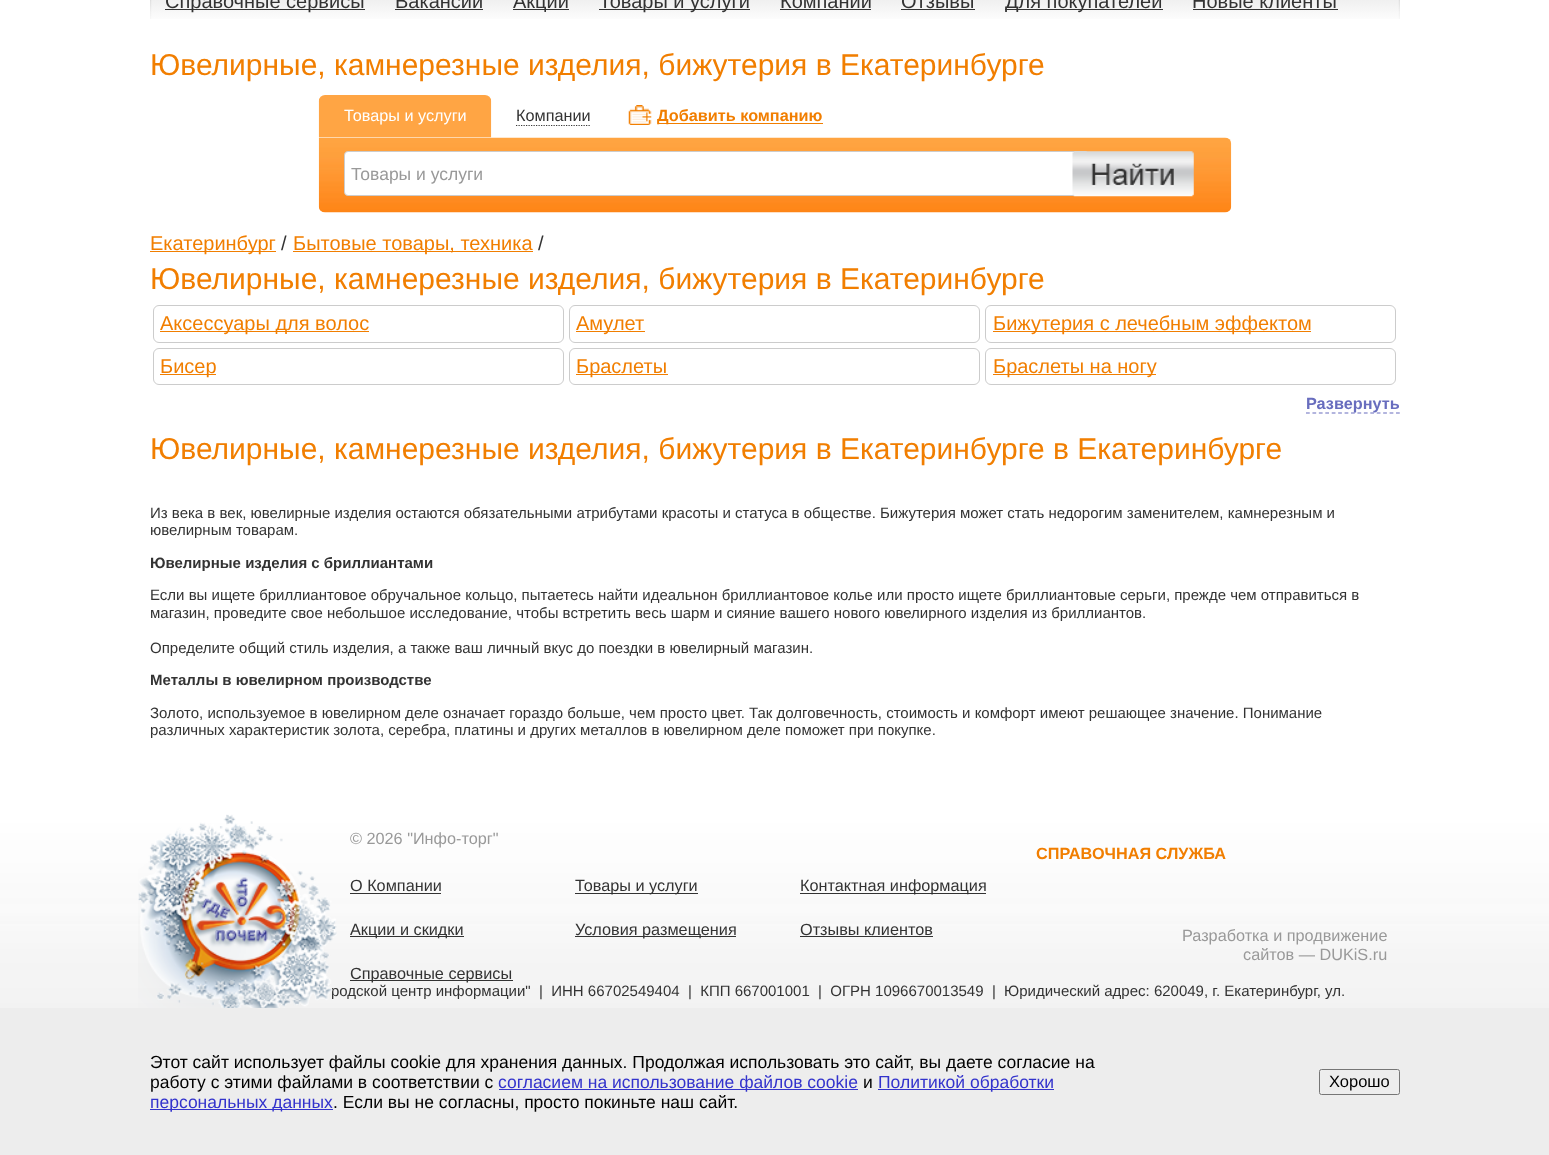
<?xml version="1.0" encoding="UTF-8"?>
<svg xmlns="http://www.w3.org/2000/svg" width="1549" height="1155">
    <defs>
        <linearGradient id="g1" gradientUnits="userSpaceOnUse" x1="775" y1="-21" x2="775" y2="23"><stop offset="0" stop-color="#E2E2E2"/><stop offset="1" stop-color="#FFFFFF"/></linearGradient>
    </defs>
    <rect width="100%" height="100%" fill="#FFFFFF"/>
    <rect x="150" y="0" width="1250" height="19" fill="url(#g1)"/>
    <image x="150" y="0" width="2" height="19" href="img_01.png"/>
    <rect x="165" y="9" width="200" height="1" fill="#333333"/>
    <text x="165" y="8" font-family="Liberation Sans" font-size="20" fill="#333333">Справочные сервисы</text>
    <text x="395" y="8" font-family="Liberation Sans" font-size="20" fill="#333333">Вакансии</text>
    <rect x="395" y="9" width="88" height="1" fill="#333333"/>
    <rect x="513" y="9" width="56" height="1" fill="#333333"/>
    <text x="513" y="8" font-family="Liberation Sans" font-size="20" fill="#333333">Акции</text>
    <rect x="599" y="9" width="151" height="1" fill="#333333"/>
    <text x="599" y="8" font-family="Liberation Sans" font-size="20" fill="#333333">Товары и услуги</text>
    <text x="780" y="8" font-family="Liberation Sans" font-size="20" fill="#333333">Компании</text>
    <rect x="780" y="9" width="91" height="1" fill="#333333"/>
    <text x="901" y="8" font-family="Liberation Sans" font-size="20" fill="#333333">Отзывы</text>
    <rect x="901" y="9" width="74" height="1" fill="#333333"/>
    <rect x="1005" y="9" width="158" height="1" fill="#333333"/>
    <text x="1005" y="8" font-family="Liberation Sans" font-size="20" fill="#333333">Для покупателей</text>
    <text x="1192" y="8" font-family="Liberation Sans" font-size="20" fill="#333333">Новые клиенты</text>
    <rect x="1193" y="9" width="145" height="1" fill="#333333"/>
    <image x="1398" y="0" width="2" height="19" href="img_02.png"/>
    <text x="150" y="75" font-family="Liberation Sans" font-size="30" fill="#F17E00">Ювелирные, камнерезные изделия, бижутерия в Екатеринбурге</text>
    <image x="318" y="95" width="174" height="43" href="img_03.png"/>
    <text x="344" y="121" font-family="Liberation Sans" font-size="16.25" fill="#FFFFFF">Товары и услуги</text>
    <text x="516" y="121" font-family="Liberation Sans" font-size="16.25" fill="#333333">Компании</text>
    <path d="M 516 125.5 H 591" fill="none" stroke="#373737" stroke-width="1.2" stroke-dasharray="1.25 1.25"/>
    <image x="628" y="105" width="24" height="20" href="img_04.png"/>
    <rect x="658" y="123" width="165" height="1" fill="#F17E00"/>
    <text x="657" y="121" font-family="Liberation Sans" font-size="16.25" font-weight="700" fill="#F17E00">Добавить компанию</text>
    <image x="318" y="137" width="914" height="76" href="img_05.png"/>
    <rect x="344.5" y="151.5" width="744" height="44" rx="3.5" fill="#FFFFFF" stroke="#CCCCCC"/>
    <text x="351" y="180" font-family="Liberation Sans" font-size="17.5" fill="#999999">Товары и услуги</text>
    <image x="1072" y="151" width="122" height="46" href="img_06.png"/>
    <rect x="150" y="251" width="126" height="1" fill="#F17E00"/>
    <text x="150" y="250" font-family="Liberation Sans" font-size="20" fill="#F17E00">Екатеринбург</text>
    <text x="281" y="250" font-family="Liberation Sans" font-size="20" fill="#333333">/</text>
    <rect x="293" y="251" width="240" height="1" fill="#F17E00"/>
    <text x="293" y="250" font-family="Liberation Sans" font-size="20" fill="#F17E00">Бытовые товары, техника</text>
    <text x="538" y="250" font-family="Liberation Sans" font-size="20" fill="#333333">/</text>
    <text x="150" y="289" font-family="Liberation Sans" font-size="30" fill="#F17E00">Ювелирные, камнерезные изделия, бижутерия в Екатеринбурге</text>
    <rect x="153.5" y="305.5" width="410" height="37" rx="5.5" fill="none" stroke="#CCCCCC"/>
    <rect x="160" y="331" width="209" height="1" fill="#F17E00"/>
    <text x="160" y="330" font-family="Liberation Sans" font-size="20" fill="#F17E00">Аксессуары для волос</text>
    <rect x="569.5" y="305.5" width="410" height="37" rx="5.5" fill="none" stroke="#CCCCCC"/>
    <rect x="576" y="331" width="69" height="1" fill="#F17E00"/>
    <text x="576" y="330" font-family="Liberation Sans" font-size="20" fill="#F17E00">Амулет</text>
    <rect x="985.5" y="305.5" width="410" height="37" rx="5.5" fill="none" stroke="#CCCCCC"/>
    <rect x="993" y="331" width="318" height="1" fill="#F17E00"/>
    <text x="993" y="330" font-family="Liberation Sans" font-size="20" fill="#F17E00">Бижутерия с лечебным эффектом</text>
    <rect x="153.5" y="348.5" width="410" height="36" rx="5.5" fill="none" stroke="#CCCCCC"/>
    <rect x="160" y="374" width="56" height="1" fill="#F17E00"/>
    <text x="160" y="373" font-family="Liberation Sans" font-size="20" fill="#F17E00">Бисер</text>
    <rect x="569.5" y="348.5" width="410" height="36" rx="5.5" fill="none" stroke="#CCCCCC"/>
    <rect x="576" y="374" width="92" height="1" fill="#F17E00"/>
    <text x="576" y="373" font-family="Liberation Sans" font-size="20" fill="#F17E00">Браслеты</text>
    <rect x="985.5" y="348.5" width="410" height="36" rx="5.5" fill="none" stroke="#CCCCCC"/>
    <rect x="993" y="374" width="163" height="1" fill="#F17E00"/>
    <text x="993" y="373" font-family="Liberation Sans" font-size="20" fill="#F17E00">Браслеты на ногу</text>
    <path d="M 1306 413 H 1400" fill="none" stroke="#686DBE" stroke-width="1.2" stroke-dasharray="3.75 2.68"/>
    <text x="1306" y="409" font-family="Liberation Sans" font-size="16.25" font-weight="700" fill="#686DBE">Развернуть</text>
    <text x="150" y="459" font-family="Liberation Sans" font-size="30" fill="#F17E00">Ювелирные, камнерезные изделия, бижутерия в Екатеринбурге в Екатеринбурге</text>
    <text font-family="Liberation Sans" font-size="15" fill="#333333">
        <tspan x="150" y="518">Из века в век, ювелирные изделия остаются обязательными атрибутами красоты и статуса в обществе. Бижутерия может стать недорогим заменителем, камнерезным и</tspan>
        <tspan x="150" y="535">ювелирным товарам.</tspan>
    </text>
    <text x="150" y="568" font-family="Liberation Sans" font-size="15" font-weight="700" fill="#333333">Ювелирные изделия с бриллиантами</text>
    <text font-family="Liberation Sans" font-size="15" fill="#333333">
        <tspan x="150" y="600">Если вы ищете бриллиантовое обручальное кольцо, пытаетесь найти идеальнон бриллиантовое колье или просто ищете бриллиантовые серьги, прежде чем отправиться в</tspan>
        <tspan x="150" y="618">магазин, проведите свое небольшое исследование, чтобы встретить весь шарм и сияние вашего нового ювелирного изделия из бриллиантов.</tspan>
    </text>
    <text x="150" y="653" font-family="Liberation Sans" font-size="15" fill="#333333">Определите общий стиль изделия, а также ваш личный вкус до поездки в ювелирный магазин.</text>
    <text x="150" y="685" font-family="Liberation Sans" font-size="15" font-weight="700" fill="#333333">Металлы в ювелирном производстве</text>
    <text font-family="Liberation Sans" font-size="15" fill="#333333">
        <tspan x="150" y="718">Золото, используемое в ювелирном деле означает гораздо больше, чем просто цвет. Так долговечность, стоимость и комфорт имеют решающее значение. Понимание</tspan>
        <tspan x="150" y="735">различных характеристик золота, серебра, платины и других металлов в ювелирном деле поможет при покупке.</tspan>
    </text>
    <image x="0" y="814" width="1549" height="194" href="img_07.png"/>
    <text x="331" y="996" font-family="Liberation Sans" font-size="15" fill="#333333" xml:space="preserve">родской центр информации"  |  ИНН 66702549404  |  КПП 667001001  |  ОГРН 1096670013549  |  Юридический адрес: 620049, г. Екатеринбург, ул.</text>
    <image x="138" y="814" width="199" height="194" href="img_08.png"/>
    <text x="350" y="844" font-family="Liberation Sans" font-size="16.25" fill="#999999">© 2026 "Инфо-торг"</text>
    <text x="1036" y="859" font-family="Liberation Sans" font-size="16.25" font-weight="700" fill="#F17E00">СПРАВОЧНАЯ СЛУЖБА</text>
    <text x="350" y="891" font-family="Liberation Sans" font-size="16.25" fill="#333333">О Компании</text>
    <rect x="350" y="893" width="91" height="1" fill="#333333"/>
    <rect x="575" y="893" width="123" height="1" fill="#333333"/>
    <text x="575" y="891" font-family="Liberation Sans" font-size="16.25" fill="#333333">Товары и услуги</text>
    <rect x="800" y="893" width="186" height="1" fill="#333333"/>
    <text x="800" y="891" font-family="Liberation Sans" font-size="16.25" fill="#333333">Контактная информация</text>
    <rect x="350" y="936" width="114" height="1" fill="#333333"/>
    <text x="350" y="935" font-family="Liberation Sans" font-size="16.25" fill="#333333">Акции и скидки</text>
    <rect x="575" y="936" width="161" height="1" fill="#333333"/>
    <text x="575" y="935" font-family="Liberation Sans" font-size="16.25" fill="#333333">Условия размещения</text>
    <text x="800" y="935" font-family="Liberation Sans" font-size="16.25" fill="#333333">Отзывы клиентов</text>
    <rect x="800" y="936" width="133" height="1" fill="#333333"/>
    <rect x="350" y="980" width="163" height="1" fill="#333333"/>
    <text x="350" y="979" font-family="Liberation Sans" font-size="16.25" fill="#333333">Справочные сервисы</text>
    <text x="1182" y="941" font-family="Liberation Sans" font-size="16.25" fill="#999999">Разработка и продвижение</text>
    <text x="1243" y="960" font-family="Liberation Sans" font-size="16.25" fill="#999999">сайтов — DUKiS.ru</text>
    <rect x="0" y="1008" width="1549" height="147" fill="#EDEDED"/>
    <text font-family="Liberation Sans" font-size="17.5" fill="#000000">
        <tspan x="150" y="1068">Этот сайт использует файлы cookie для хранения данных. Продолжая использовать это сайт, вы даете согласие на</tspan>
        <tspan x="150" y="1088">работу с этими файлами в соответствии с</tspan>
    </text>
    <rect x="499" y="1089" width="359" height="1" fill="#3333CC"/>
    <text x="498" y="1088" font-family="Liberation Sans" font-size="17.5" fill="#3333CC">согласием на использование файлов cookie</text>
    <text x="863" y="1088" font-family="Liberation Sans" font-size="17.5" fill="#000000">и</text>
    <rect x="878" y="1089" width="176" height="1" fill="#3333CC"/>
    <text x="878" y="1088" font-family="Liberation Sans" font-size="17.5" fill="#3333CC">Политикой обработки</text>
    <rect x="150" y="1109" width="183" height="1" fill="#3333CC"/>
    <text x="150" y="1108" font-family="Liberation Sans" font-size="17.5" fill="#3333CC">персональных данных</text>
    <text x="333" y="1108" font-family="Liberation Sans" font-size="17.5" fill="#000000">. Если вы не согласны, просто покиньте наш сайт.</text>
    <rect x="1319.5" y="1069.5" width="80" height="25" rx="2" fill="none" stroke="#767676"/>
    <text x="1329" y="1087" font-family="Liberation Sans" font-size="16.5" fill="#000000">Хорошо</text>
</svg>
